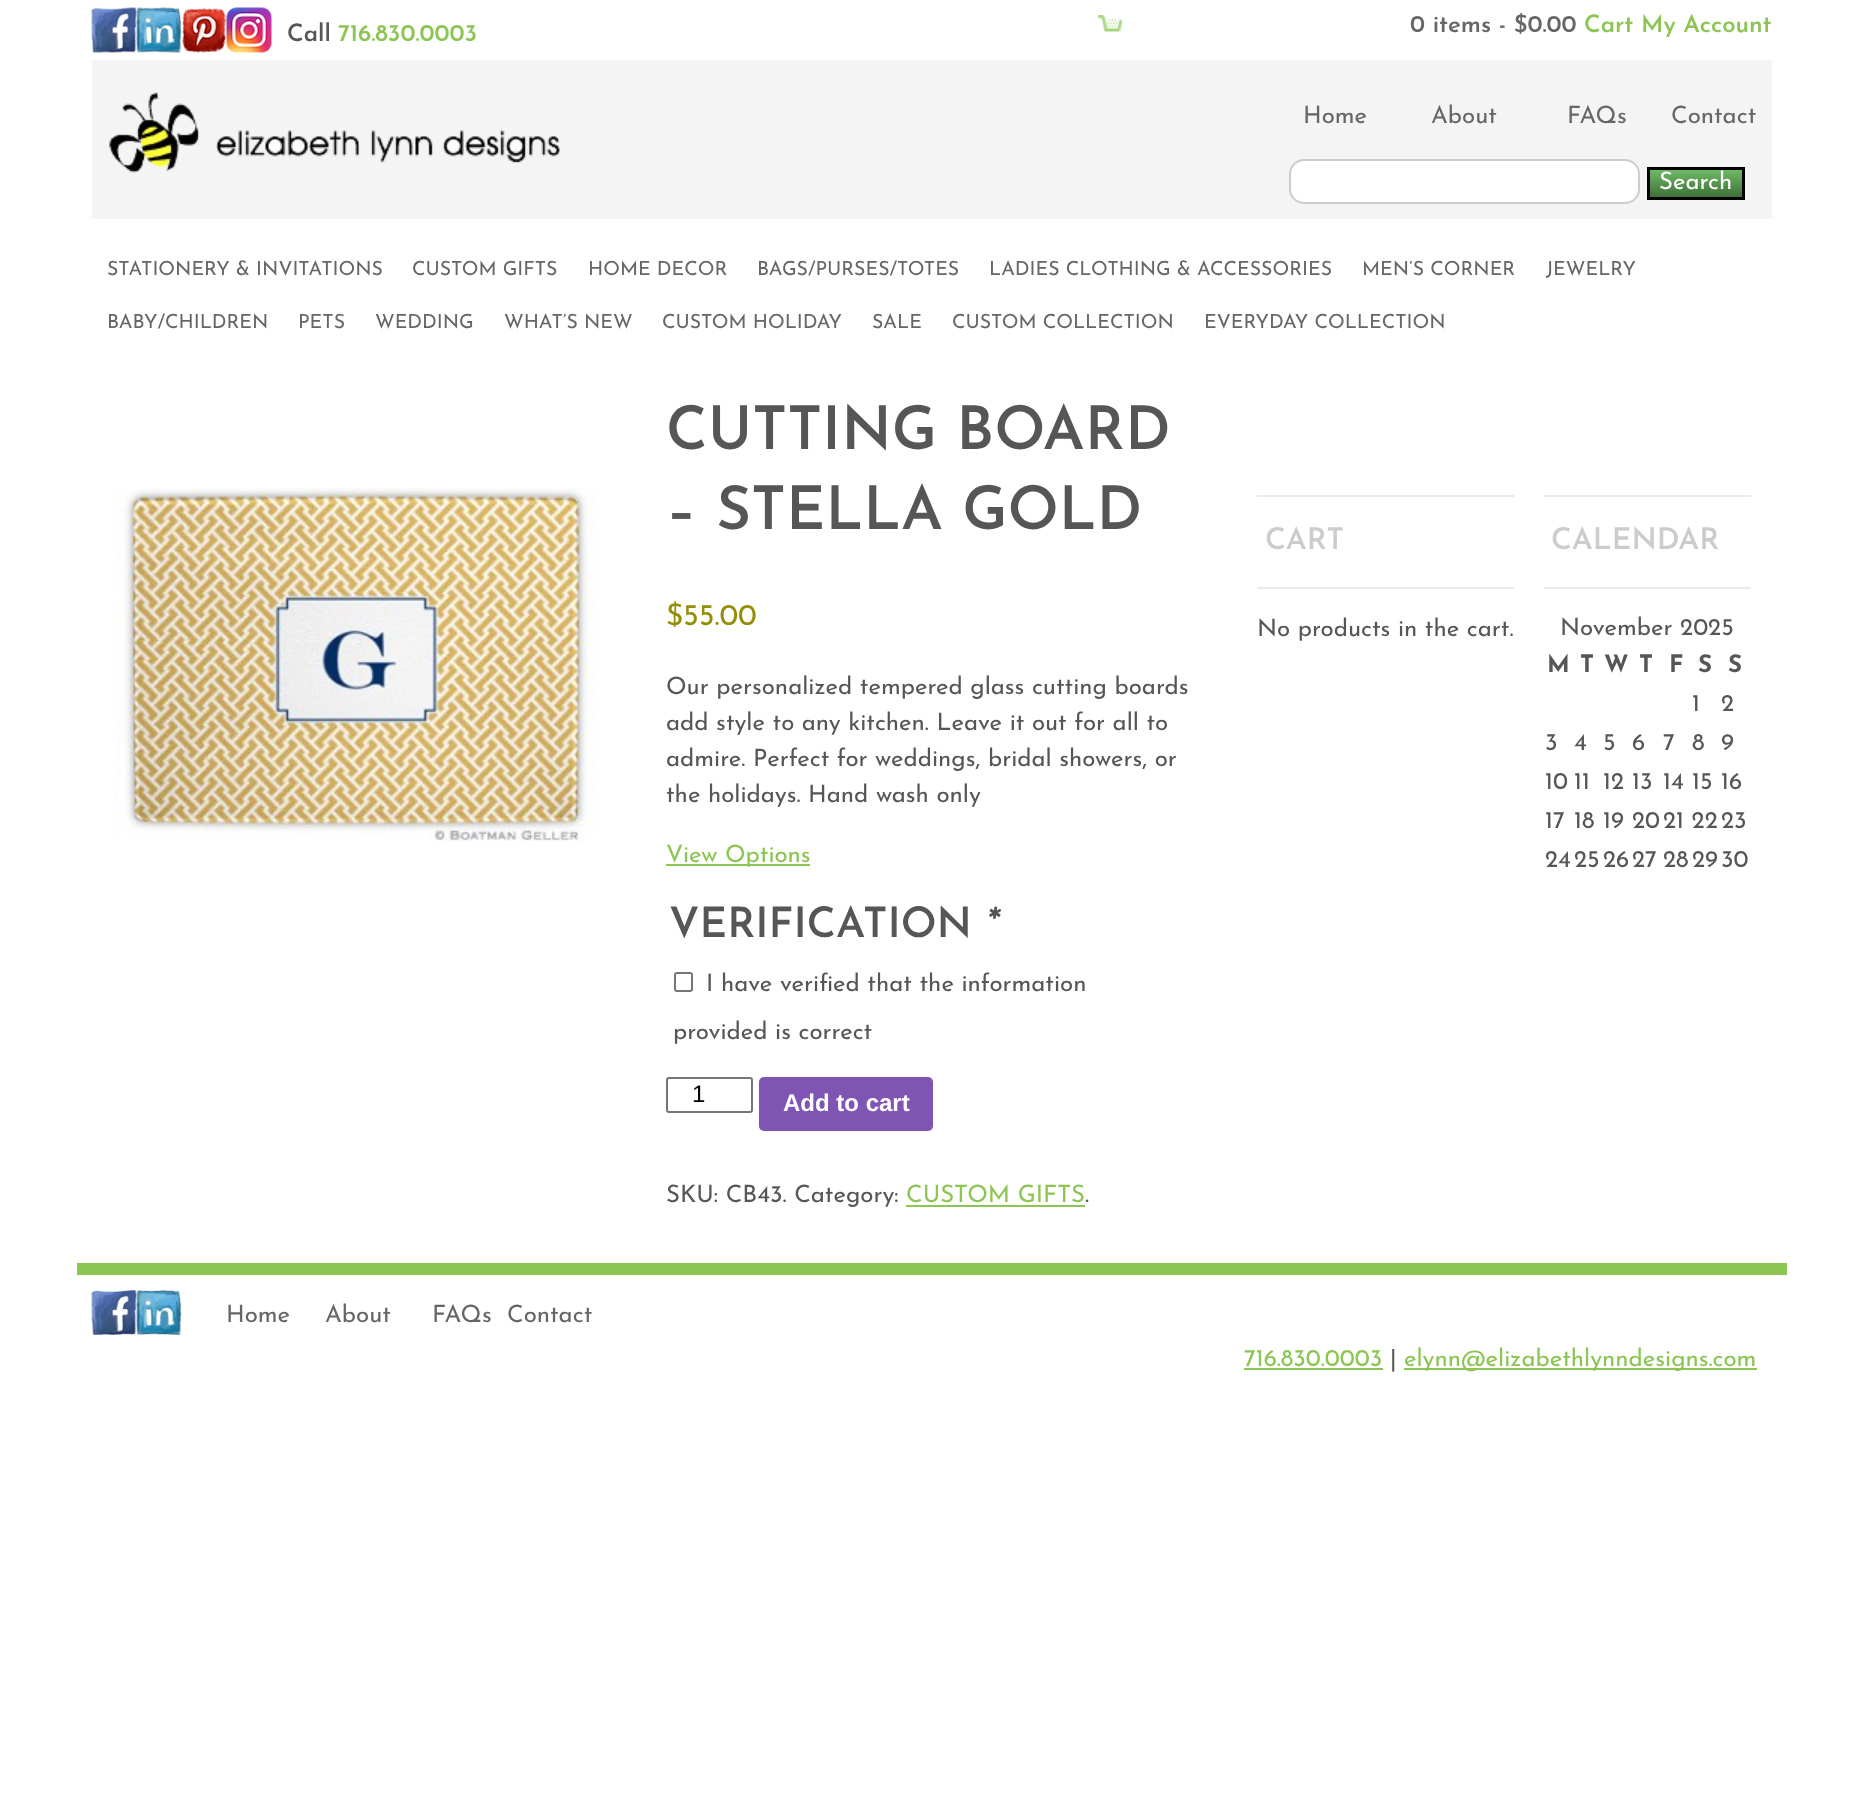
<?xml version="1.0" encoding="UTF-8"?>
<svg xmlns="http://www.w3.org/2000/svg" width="1862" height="1794">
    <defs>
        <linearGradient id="g1" gradientUnits="userSpaceOnUse" x1="1696" y1="170" x2="1696" y2="197"><stop offset="0" stop-color="#6EB966"/><stop offset="1" stop-color="#3E7038"/></linearGradient>
    </defs>
    <rect width="100%" height="100%" fill="#FFFFFF"/>
    <image x="91" y="7" width="46" height="46" href="img_01.png"/>
    <image x="136" y="7" width="46" height="46" href="img_02.png"/>
    <image x="181" y="8" width="46" height="45" href="img_03.png"/>
    <image x="226" y="7" width="46" height="46" href="img_04.png"/>
    <text x="287" y="41" font-family="Josefin Sans" font-size="24" font-weight="600" fill="#565656">Call</text>
    <text x="338" y="41" font-family="Josefin Sans" font-size="24" font-weight="600" fill="#8CC554">716.830.0003</text>
    <image x="1098" y="15" width="24" height="17" href="img_05.png"/>
    <text x="1410" y="32" font-family="Josefin Sans" font-size="24" font-weight="600" fill="#666666">0 items - $0.00</text>
    <text x="1584" y="32" font-family="Josefin Sans" font-size="24" font-weight="600" fill="#8CC554">Cart My Account</text>
    <rect x="92" y="60" width="1680" height="159" fill="#F4F4F4"/>
    <image x="109" y="92" width="451" height="81" href="img_06.png"/>
    <text x="1303" y="123" font-family="Josefin Sans" font-size="24" fill="#666666">Home</text>
    <text x="1431" y="123" font-family="Josefin Sans" font-size="24" fill="#666666">About</text>
    <text x="1567" y="123" font-family="Josefin Sans" font-size="24" fill="#666666">FAQs</text>
    <text x="1671" y="123" font-family="Josefin Sans" font-size="24" fill="#666666">Contact</text>
    <rect x="1290" y="160" width="349" height="43" rx="14" fill="#FFFFFF" stroke="#CCCCCC" stroke-width="2"/>
    <rect x="1650" y="170" width="92" height="27" fill="url(#g1)"/>
    <rect x="1648.5" y="168.5" width="95" height="30" fill="none" stroke="#000000" stroke-width="3"/>
    <text x="1659" y="189" font-family="Josefin Sans" font-size="24" fill="#FFFFFF">Search</text>
    <text x="107" y="275" font-family="Josefin Sans" font-size="19.5" fill="#666666">STATIONERY &amp; INVITATIONS</text>
    <text x="412" y="275" font-family="Josefin Sans" font-size="19.5" fill="#666666">CUSTOM GIFTS</text>
    <text x="588" y="275" font-family="Josefin Sans" font-size="19.5" fill="#666666">HOME DECOR</text>
    <text x="757" y="275" font-family="Josefin Sans" font-size="19.5" fill="#666666">BAGS/PURSES/TOTES</text>
    <text x="989" y="275" font-family="Josefin Sans" font-size="19.5" fill="#666666">LADIES CLOTHING &amp; ACCESSORIES</text>
    <text x="1362" y="275" font-family="Josefin Sans" font-size="19.5" fill="#666666">MEN’S CORNER</text>
    <text x="1546" y="275" font-family="Josefin Sans" font-size="19.5" fill="#666666">JEWELRY</text>
    <text x="107" y="328" font-family="Josefin Sans" font-size="19.5" fill="#666666">BABY/CHILDREN</text>
    <text x="298" y="328" font-family="Josefin Sans" font-size="19.5" fill="#666666">PETS</text>
    <text x="375" y="328" font-family="Josefin Sans" font-size="19.5" fill="#666666">WEDDING</text>
    <text x="504" y="328" font-family="Josefin Sans" font-size="19.5" fill="#666666">WHAT’S NEW</text>
    <text x="662" y="328" font-family="Josefin Sans" font-size="19.5" fill="#666666">CUSTOM HOLIDAY</text>
    <text x="872" y="328" font-family="Josefin Sans" font-size="19.5" fill="#666666">SALE</text>
    <text x="952" y="328" font-family="Josefin Sans" font-size="19.5" fill="#666666">CUSTOM COLLECTION</text>
    <text x="1204" y="328" font-family="Josefin Sans" font-size="19.5" fill="#666666">EVERYDAY COLLECTION</text>
    <image x="114" y="488" width="482" height="353" href="img_07.png"/>
    <text font-family="Josefin Sans" font-size="60" font-weight="600" fill="#565656">
        <tspan x="666" y="449">CUTTING BOARD</tspan>
        <tspan x="666" y="529">– STELLA GOLD</tspan>
    </text>
    <text x="666" y="625" font-family="Josefin Sans" font-size="30" fill="#958E09">$55.00</text>
    <text font-family="Josefin Sans" font-size="24" fill="#565656">
        <tspan x="666" y="694">Our personalized tempered glass cutting boards</tspan>
        <tspan x="666" y="730">add style to any kitchen. Leave it out for all to</tspan>
        <tspan x="666" y="766">admire. Perfect for weddings, bridal showers, or</tspan>
        <tspan x="666" y="802">the holidays. Hand wash only</tspan>
    </text>
    <rect x="666" y="864" width="144" height="2" fill="#8CC554"/>
    <text x="666" y="862" font-family="Josefin Sans" font-size="24" fill="#8CC554">View Options</text>
    <text x="669" y="937" font-family="Josefin Sans" font-size="42" font-weight="600" fill="#565656">VERIFICATION</text>
    <text x="985" y="937" font-family="Josefin Sans" font-size="42" font-weight="600" font-style="italic" fill="#565656">*</text>
    <rect x="675" y="973" width="17" height="18" rx="2" fill="none" stroke="#767676" stroke-width="2"/>
    <text x="706" y="991" font-family="Josefin Sans" font-size="24" fill="#565656">I have verified that the information</text>
    <text x="673" y="1039" font-family="Josefin Sans" font-size="24" fill="#565656">provided is correct</text>
    <rect x="667" y="1078" width="85" height="34" rx="2" fill="none" stroke="#767676" stroke-width="2"/>
    <text x="692" y="1102" font-family="Liberation Sans" font-size="24" fill="#000000">1</text>
    <rect x="759" y="1077" width="174" height="54" rx="5" fill="#7F54B3"/>
    <text x="783" y="1111" font-family="Liberation Sans" font-size="24" font-weight="700" fill="#FFFFFF">Add to cart</text>
    <text x="666" y="1202" font-family="Josefin Sans" font-size="24" fill="#565656">SKU: CB43. Category:</text>
    <text x="906" y="1202" font-family="Josefin Sans" font-size="24" fill="#8CC554">CUSTOM GIFTS</text>
    <text x="1085" y="1202" font-family="Josefin Sans" font-size="24" fill="#565656">.</text>
    <rect x="906" y="1205" width="179" height="2" fill="#8CC554"/>
    <rect x="1257" y="495" width="257" height="2" fill="#EBEBEB"/>
    <rect x="1257" y="587" width="257" height="2" fill="#EBEBEB"/>
    <text x="1265" y="549" font-family="Josefin Sans" font-size="30" font-weight="600" fill="#CCCCCC">CART</text>
    <text x="1257" y="636" font-family="Josefin Sans" font-size="24" fill="#565656">No products in the cart.</text>
    <rect x="1544" y="495" width="207" height="2" fill="#EBEBEB"/>
    <rect x="1544" y="587" width="207" height="2" fill="#EBEBEB"/>
    <text x="1551" y="549" font-family="Josefin Sans" font-size="30" font-weight="600" fill="#CCCCCC">CALENDAR</text>
    <text x="1560" y="635" font-family="Josefin Sans" font-size="24" fill="#565656">November 2025</text>
    <text x="1547" y="672" font-family="Josefin Sans" font-size="24" font-weight="700" fill="#565656">M</text>
    <text x="1580" y="672" font-family="Josefin Sans" font-size="24" font-weight="700" fill="#565656">T</text>
    <text x="1604" y="672" font-family="Josefin Sans" font-size="24" font-weight="700" fill="#565656">W</text>
    <text x="1639" y="672" font-family="Josefin Sans" font-size="24" font-weight="700" fill="#565656">T</text>
    <text x="1669" y="672" font-family="Josefin Sans" font-size="24" font-weight="700" fill="#565656">F</text>
    <text x="1698" y="672" font-family="Josefin Sans" font-size="24" font-weight="700" fill="#565656">S</text>
    <text x="1728" y="672" font-family="Josefin Sans" font-size="24" font-weight="700" fill="#565656">S</text>
    <text x="1692" y="711" font-family="Josefin Sans" font-size="24" fill="#565656">1</text>
    <text x="1721" y="711" font-family="Josefin Sans" font-size="24" fill="#565656">2</text>
    <text x="1545" y="750" font-family="Josefin Sans" font-size="24" fill="#565656">3</text>
    <text x="1574" y="750" font-family="Josefin Sans" font-size="24" fill="#565656">4</text>
    <text x="1603" y="750" font-family="Josefin Sans" font-size="24" fill="#565656">5</text>
    <text x="1632" y="750" font-family="Josefin Sans" font-size="24" fill="#565656">6</text>
    <text x="1663" y="750" font-family="Josefin Sans" font-size="24" fill="#565656">7</text>
    <text x="1692" y="750" font-family="Josefin Sans" font-size="24" fill="#565656">8</text>
    <text x="1721" y="750" font-family="Josefin Sans" font-size="24" fill="#565656">9</text>
    <text x="1545" y="789" font-family="Josefin Sans" font-size="24" fill="#565656">10</text>
    <text x="1574" y="789" font-family="Josefin Sans" font-size="24" fill="#565656">11</text>
    <text x="1603" y="789" font-family="Josefin Sans" font-size="24" fill="#565656">12</text>
    <text x="1632" y="789" font-family="Josefin Sans" font-size="24" fill="#565656">13</text>
    <text x="1663" y="789" font-family="Josefin Sans" font-size="24" fill="#565656">14</text>
    <text x="1692" y="789" font-family="Josefin Sans" font-size="24" fill="#565656">15</text>
    <text x="1721" y="789" font-family="Josefin Sans" font-size="24" fill="#565656">16</text>
    <text x="1545" y="828" font-family="Josefin Sans" font-size="24" fill="#565656">17</text>
    <text x="1574" y="828" font-family="Josefin Sans" font-size="24" fill="#565656">18</text>
    <text x="1603" y="828" font-family="Josefin Sans" font-size="24" fill="#565656">19</text>
    <text x="1632" y="828" font-family="Josefin Sans" font-size="24" fill="#565656">20</text>
    <text x="1663" y="828" font-family="Josefin Sans" font-size="24" fill="#565656">21 22</text>
    <text x="1721" y="828" font-family="Josefin Sans" font-size="24" fill="#565656">23</text>
    <text x="1545" y="867" font-family="Josefin Sans" font-size="24" fill="#565656">24</text>
    <text x="1574" y="867" font-family="Josefin Sans" font-size="24" fill="#565656">25</text>
    <text x="1603" y="867" font-family="Josefin Sans" font-size="24" fill="#565656">26</text>
    <text x="1632" y="867" font-family="Josefin Sans" font-size="24" fill="#565656">27</text>
    <text x="1663" y="867" font-family="Josefin Sans" font-size="24" fill="#565656">28</text>
    <text x="1692" y="867" font-family="Josefin Sans" font-size="24" fill="#565656">29</text>
    <text x="1721" y="867" font-family="Josefin Sans" font-size="24" fill="#565656">30</text>
    <rect x="77" y="1263" width="1710" height="12" fill="#8CC554"/>
    <image x="91" y="1290" width="46" height="45" href="img_08.png"/>
    <image x="136" y="1290" width="46" height="45" href="img_09.png"/>
    <text x="226" y="1322" font-family="Josefin Sans" font-size="24" fill="#666666">Home</text>
    <text x="325" y="1322" font-family="Josefin Sans" font-size="24" fill="#666666">About</text>
    <text x="432" y="1322" font-family="Josefin Sans" font-size="24" fill="#666666">FAQs</text>
    <text x="507" y="1322" font-family="Josefin Sans" font-size="24" fill="#666666">Contact</text>
    <text x="1244" y="1366" font-family="Josefin Sans" font-size="24" fill="#8CC554">716.830.0003</text>
    <rect x="1244" y="1368" width="139" height="2" fill="#8CC554"/>
    <text x="1390" y="1366" font-family="Josefin Sans" font-size="24" fill="#565656">|</text>
    <rect x="1404" y="1368" width="353" height="2" fill="#8CC554"/>
    <text x="1404" y="1366" font-family="Josefin Sans" font-size="24" fill="#8CC554">elynn@elizabethlynndesigns.com</text>
</svg>
